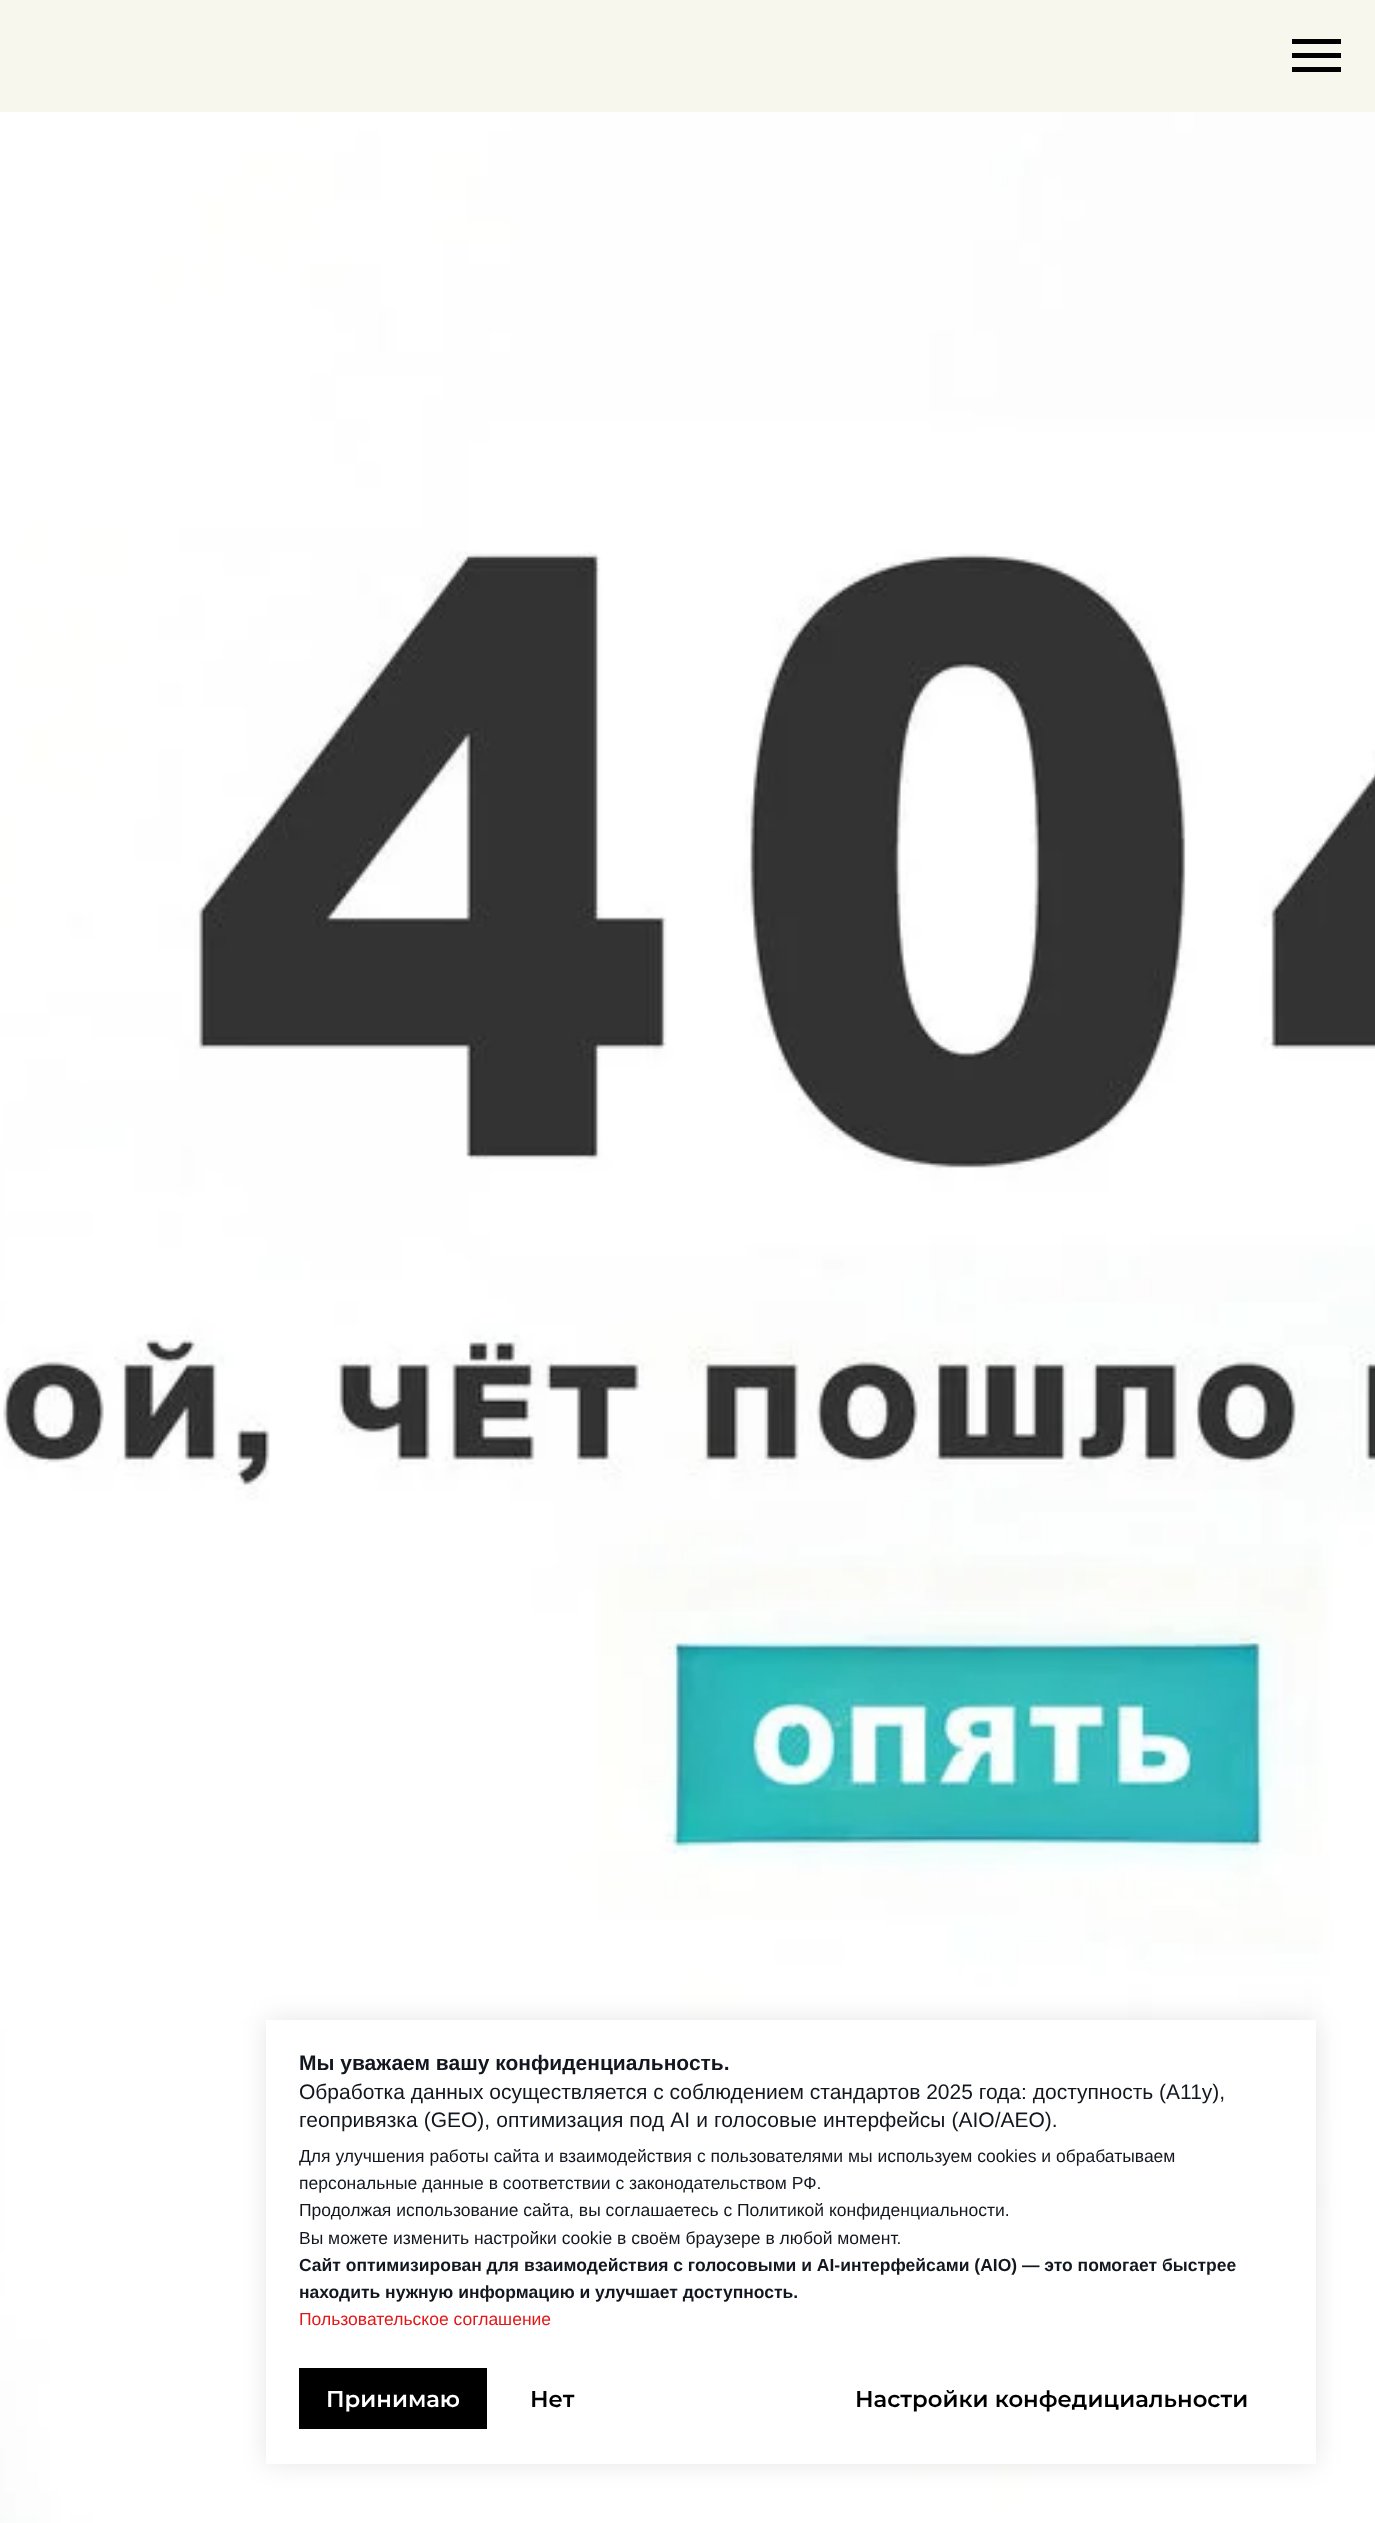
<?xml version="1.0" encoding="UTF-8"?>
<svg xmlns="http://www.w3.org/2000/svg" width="1375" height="2523">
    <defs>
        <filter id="blur1" x="-50%" y="-200%" width="200%" height="500%"><feGaussianBlur stdDeviation="13"/></filter>
    </defs>
    <rect width="100%" height="100%" fill="#FFFFFF"/>
    <rect x="0" y="0" width="1375" height="112" fill="#F8F7EE"/>
    <rect x="1292" y="39" width="49" height="5" fill="#000000"/>
    <rect x="1292" y="53" width="49" height="5" fill="#000000"/>
    <rect x="1292" y="67" width="49" height="5" fill="#000000"/>
    <image x="0" y="112" width="1375" height="2411" href="img_01.png"/>
    <rect x="266" y="2020" width="1050" height="444" fill="#000000" fill-opacity="0.1" filter="url(#blur1)"/>
    <rect x="266" y="2020" width="1050" height="444" fill="#FFFFFF"/>
    <text x="299" y="2070" font-family="Liberation Sans" font-size="21" font-weight="700" fill="#12171F">Мы уважаем вашу конфиденциальность.</text>
    <text font-family="Liberation Sans" font-size="21" fill="#12171F">
        <tspan x="299" y="2099">Обработка данных осуществляется с соблюдением стандартов 2025 года: доступность (A11y),</tspan>
        <tspan x="299" y="2127" word-spacing="0.25">геопривязка (GEO), оптимизация под AI и голосовые интерфейсы (AIO/AEO).</tspan>
    </text>
    <text font-family="Liberation Sans" font-size="17.5" fill="#12171F">
        <tspan x="299" y="2162">Для улучшения работы сайта и взаимодействия с пользователями мы используем cookies и обрабатываем</tspan>
        <tspan x="299" y="2189">персональные данные в соответствии с законодательством РФ.</tspan>
        <tspan x="299" y="2216">Продолжая использование сайта, вы соглашаетесь с Политикой конфиденциальности.</tspan>
        <tspan x="299" y="2244">Вы можете изменить настройки cookie в своём браузере в любой момент.</tspan>
    </text>
    <text font-family="Liberation Sans" font-size="17.5" font-weight="700" fill="#12171F">
        <tspan x="299" y="2271">Сайт оптимизирован для взаимодействия с голосовыми и AI-интерфейсами (AIO) — это помогает быстрее</tspan>
        <tspan x="299" y="2298">находить нужную информацию и улучшает доступность.</tspan>
    </text>
    <text x="299" y="2325" font-family="Liberation Sans" font-size="17.5" fill="#E31717">Пользовательское соглашение</text>
    <rect x="299" y="2368" width="188" height="61" fill="#000000"/>
    <text x="326" y="2407" font-family="Montserrat" font-size="22.75" font-weight="600" fill="#FFFFFF">Принимаю</text>
    <text x="530" y="2407" font-family="Montserrat" font-size="22.75" font-weight="600" fill="#000000">Нет</text>
    <text x="855" y="2407" font-family="Montserrat" font-size="22.75" font-weight="600" fill="#000000">Настройки конфедициальности</text>
</svg>
